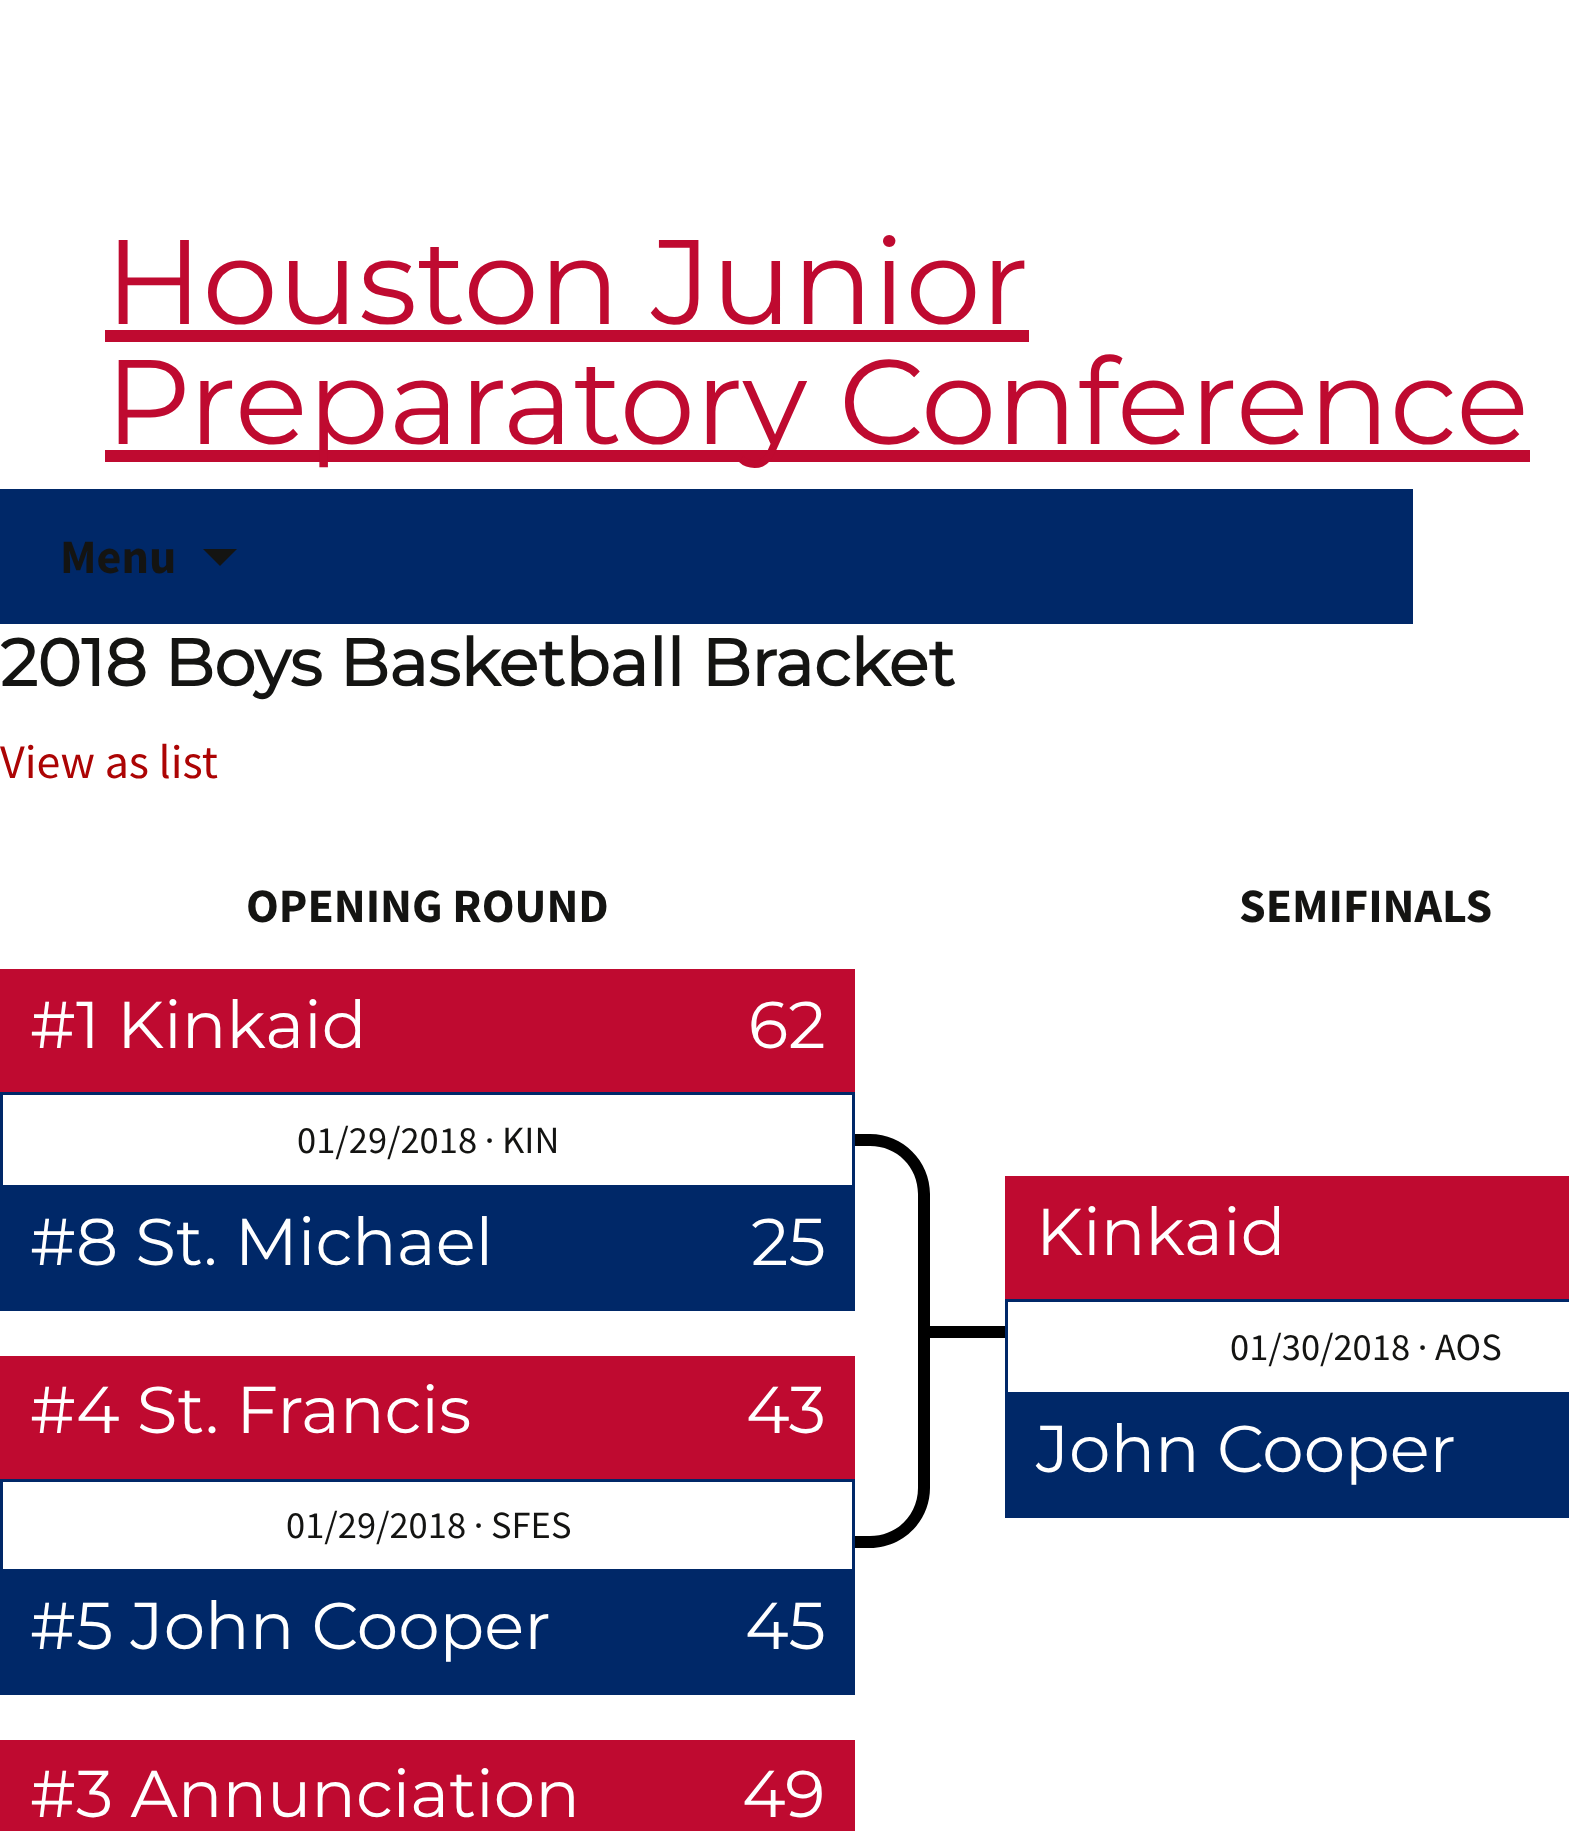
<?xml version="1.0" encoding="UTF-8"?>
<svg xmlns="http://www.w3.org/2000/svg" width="1569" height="1831">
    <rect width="100%" height="100%" fill="#FFFFFF"/>
    <text x="105" y="324" font-family="Montserrat" font-size="120" font-weight="100" fill="#BF0A30">Houston Junior</text>
    <rect x="105" y="330" width="924" height="12" fill="#BF0A30"/>
    <rect x="105" y="450" width="1425" height="12" fill="#BF0A30"/>
    <text x="105" y="444" font-family="Montserrat" font-size="120" font-weight="100" fill="#BF0A30">Preparatory Conference</text>
    <rect x="0" y="489" width="1413" height="135" fill="#002868"/>
    <text x="60" y="573" font-family="Source Sans Pro" font-size="48" font-weight="700" fill="#141412">Menu</text>
    <path d="M 203 549 L 220 566 L 237 549 Z" fill="#141412"/>
    <text x="0" y="686" font-family="Montserrat" font-size="66" font-weight="700" fill="#141412">2018 Boys Basketball Bracket</text>
    <text x="0" y="778" font-family="Source Sans Pro" font-size="48" fill="#AC0404">View as list</text>
    <text x="246" y="922" font-family="Source Sans Pro" font-size="48" font-weight="700" fill="#141412">OPENING ROUND</text>
    <rect x="0" y="969" width="855" height="123" fill="#BF0A30"/>
    <text x="30" y="1048" font-family="Montserrat" font-size="66" font-weight="100" fill="#FFFFFF">#1 Kinkaid</text>
    <text x="748" y="1048" font-family="Montserrat" font-size="66" font-weight="100" fill="#FFFFFF">62</text>
    <rect x="1.5" y="1093.5" width="852" height="93" fill="none" stroke="#002868" stroke-width="3"/>
    <text x="297" y="1153" font-family="Source Sans Pro" font-size="38.5" fill="#141412">01/29/2018 · KIN</text>
    <rect x="0" y="1188" width="855" height="123" fill="#002868"/>
    <text x="30" y="1265" font-family="Montserrat" font-size="66" font-weight="100" fill="#FFFFFF">#8 St. Michael</text>
    <text x="751" y="1265" font-family="Montserrat" font-size="66" font-weight="100" fill="#FFFFFF">25</text>
    <rect x="0" y="1356" width="855" height="123" fill="#BF0A30"/>
    <text x="30" y="1433" font-family="Montserrat" font-size="66" font-weight="100" fill="#FFFFFF">#4 St. Francis</text>
    <text x="746" y="1433" font-family="Montserrat" font-size="66" font-weight="100" fill="#FFFFFF">43</text>
    <rect x="1.5" y="1480.5" width="852" height="90" fill="none" stroke="#002868" stroke-width="3"/>
    <text x="286" y="1538" font-family="Source Sans Pro" font-size="38.5" fill="#141412">01/29/2018 · SFES</text>
    <rect x="0" y="1572" width="855" height="123" fill="#002868"/>
    <text x="30" y="1649" font-family="Montserrat" font-size="66" font-weight="100" fill="#FFFFFF">#5 John Cooper</text>
    <text x="745" y="1649" font-family="Montserrat" font-size="66" font-weight="100" fill="#FFFFFF">45</text>
    <rect x="0" y="1740" width="855" height="91" fill="#BF0A30"/>
    <text x="30" y="1817" font-family="Montserrat" font-size="66" font-weight="100" fill="#FFFFFF">#3 Annunciation</text>
    <text x="742" y="1817" font-family="Montserrat" font-size="66" font-weight="100" fill="#FFFFFF">49</text>
    <path d="M 855 1134 H 870 C 903 1134 930 1161 930 1194 V 1488 C 930 1521 903 1548 870 1548 H 855 Z M 855 1146 H 870 C 897 1146 918 1167 918 1194 V 1488 C 918 1515 897 1536 870 1536 H 855 Z" fill="#000000" fill-rule="evenodd"/>
    <rect x="930" y="1326" width="75" height="12" fill="#000000"/>
    <text x="1239" y="922" font-family="Source Sans Pro" font-size="48" font-weight="700" fill="#141412">SEMIFINALS</text>
    <rect x="1005" y="1176" width="564" height="123" fill="#BF0A30"/>
    <text x="1036" y="1255" font-family="Montserrat" font-size="66" font-weight="100" fill="#FFFFFF">Kinkaid</text>
    <rect x="1006.5" y="1300.5" width="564" height="93" fill="none" stroke="#002868" stroke-width="3"/>
    <text x="1230" y="1360" font-family="Source Sans Pro" font-size="38.5" fill="#141412">01/30/2018 · AOS</text>
    <rect x="1005" y="1395" width="564" height="123" fill="#002868"/>
    <text x="1036" y="1472" font-family="Montserrat" font-size="66" font-weight="100" fill="#FFFFFF">John Cooper</text>
</svg>
